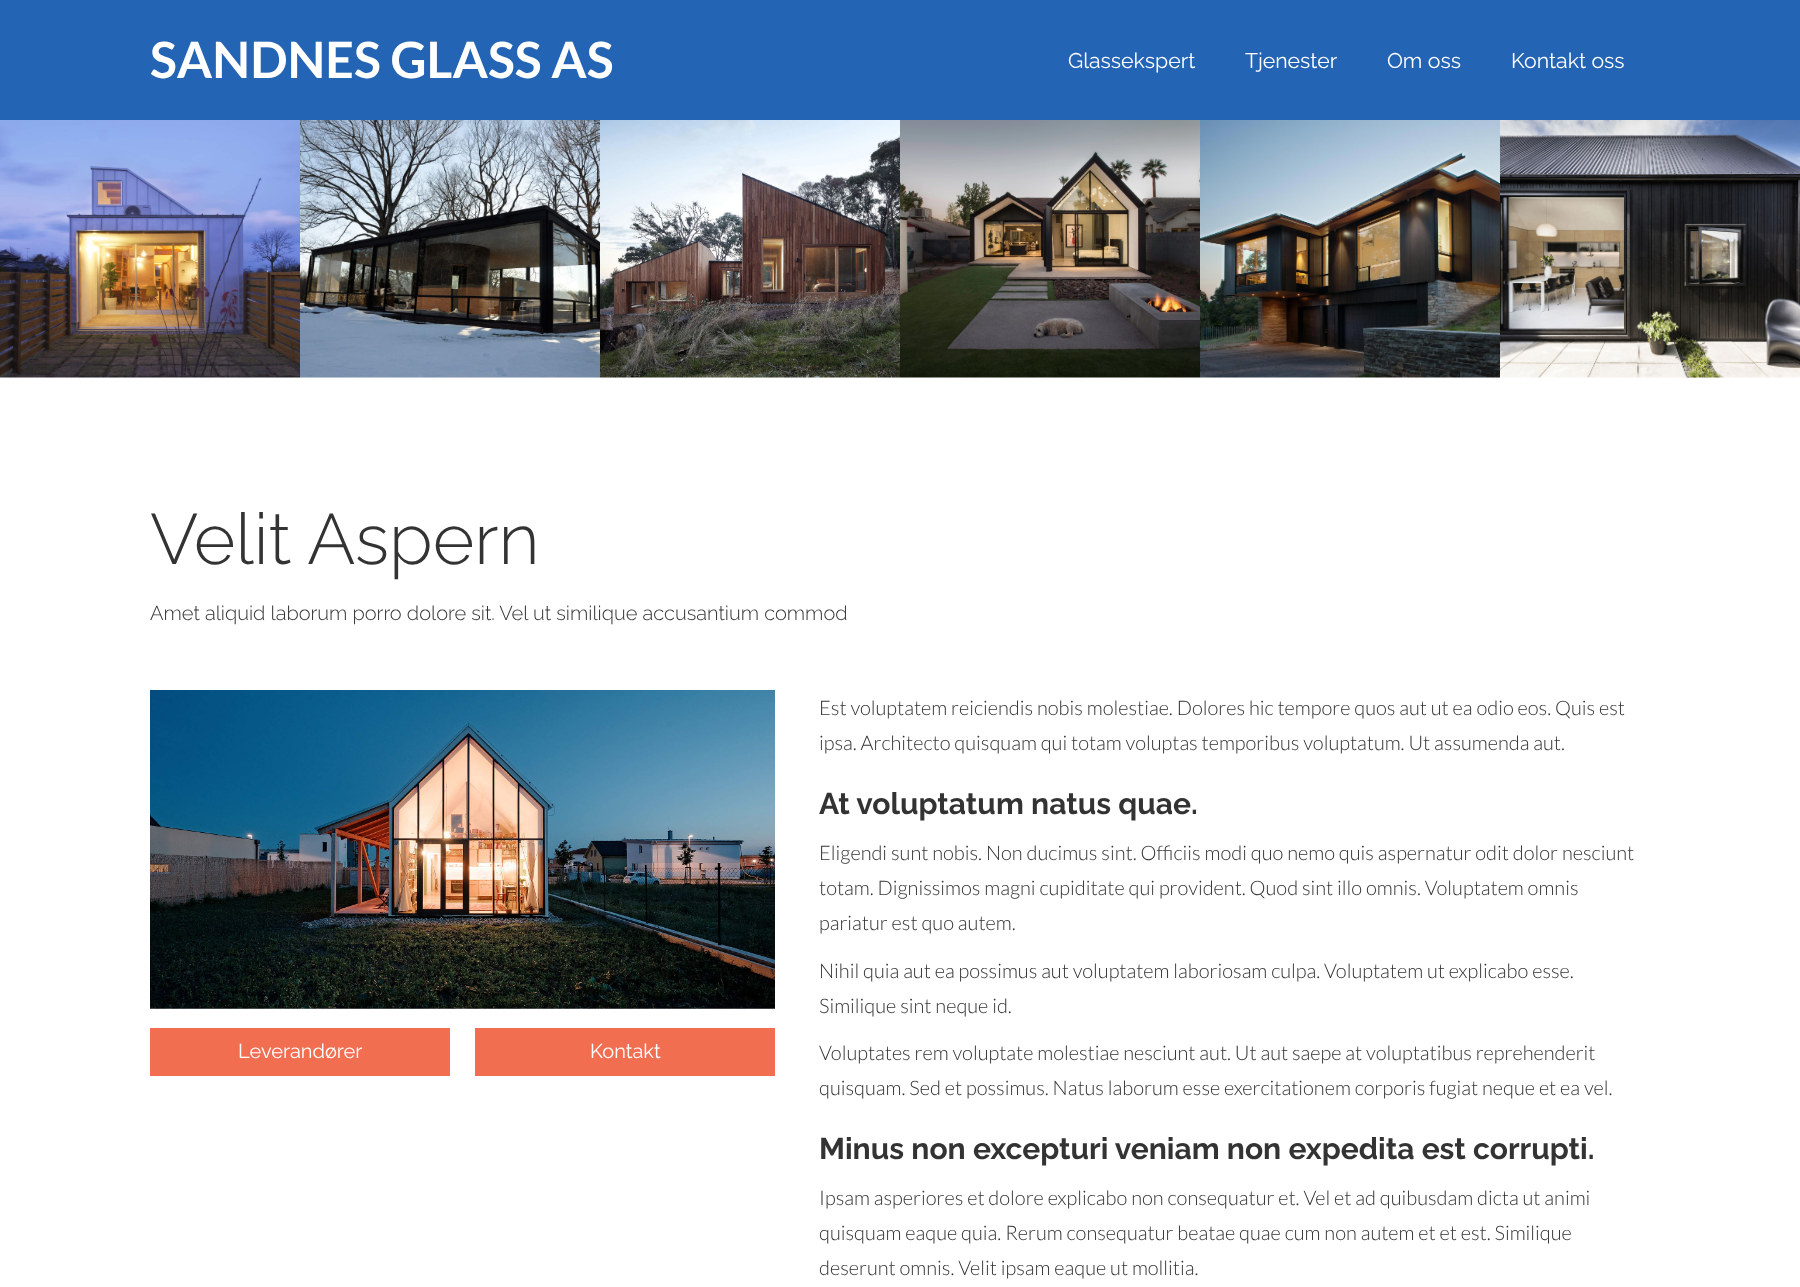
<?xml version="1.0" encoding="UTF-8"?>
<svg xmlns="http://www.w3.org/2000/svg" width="1800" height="1287">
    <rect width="100%" height="100%" fill="#FFFFFF"/>
    <rect x="0" y="0" width="1800" height="120" fill="#2364B5"/>
    <text x="150" y="78" font-family="Lato" font-size="50" font-weight="700" fill="#FFFFFF">SANDNES GLASS AS</text>
    <text x="1068" y="68" font-family="Raleway" font-size="21.25" fill="#FFFFFF">Glassekspert</text>
    <text x="1245" y="68" font-family="Raleway" font-size="21.25" fill="#FFFFFF">Tjenester</text>
    <text x="1387" y="68" font-family="Raleway" font-size="21.25" fill="#FFFFFF">Om oss</text>
    <text x="1511" y="68" font-family="Raleway" font-size="21.25" fill="#FFFFFF">Kontakt oss</text>
    <image x="0" y="120" width="300" height="258" href="img_01.png"/>
    <image x="300" y="120" width="300" height="258" href="img_02.png"/>
    <image x="600" y="120" width="300" height="258" href="img_03.png"/>
    <image x="900" y="120" width="300" height="258" href="img_04.png"/>
    <image x="1200" y="120" width="300" height="258" href="img_05.png"/>
    <image x="1500" y="120" width="300" height="258" href="img_06.png"/>
    <text x="150" y="564" font-family="Raleway" font-size="71.25" font-weight="300" fill="#333333">Velit Aspern</text>
    <text x="150" y="620" font-family="Raleway" font-size="20" font-weight="300" fill="#333333">Amet aliquid laborum porro dolore sit. Vel ut similique accusantium commod</text>
    <image x="150" y="690" width="625" height="319" href="img_07.png"/>
    <rect x="150" y="1028" width="300" height="48" fill="#F26E51"/>
    <text x="238" y="1058" font-family="Raleway" font-size="20" fill="#FFFFFF">Leverandører</text>
    <rect x="475" y="1028" width="300" height="48" fill="#F26E51"/>
    <text x="590" y="1058" font-family="Raleway" font-size="20" fill="#FFFFFF">Kontakt</text>
    <text font-family="Lato" font-size="20" font-weight="300" fill="#333333">
        <tspan x="819" y="715">Est voluptatem reiciendis nobis molestiae. Dolores hic tempore quos aut ut ea odio eos. Quis est</tspan>
        <tspan x="819" y="750">ipsa. Architecto quisquam qui totam voluptas temporibus voluptatum. Ut assumenda aut.</tspan>
    </text>
    <text x="819" y="814" font-family="Raleway" font-size="30" font-weight="700" fill="#333333">At voluptatum natus quae.</text>
    <text font-family="Lato" font-size="20" font-weight="300" fill="#333333">
        <tspan x="819" y="860">Eligendi sunt nobis. Non ducimus sint. Officiis modi quo nemo quis aspernatur odit dolor nesciunt</tspan>
        <tspan x="819" y="895">totam. Dignissimos magni cupiditate qui provident. Quod sint illo omnis. Voluptatem omnis</tspan>
        <tspan x="819" y="930">pariatur est quo autem.</tspan>
    </text>
    <text font-family="Lato" font-size="20" font-weight="300" fill="#333333">
        <tspan x="819" y="978">Nihil quia aut ea possimus aut voluptatem laboriosam culpa. Voluptatem ut explicabo esse.</tspan>
        <tspan x="819" y="1013">Similique sint neque id.</tspan>
    </text>
    <text font-family="Lato" font-size="20" font-weight="300" fill="#333333">
        <tspan x="819" y="1060">Voluptates rem voluptate molestiae nesciunt aut. Ut aut saepe at voluptatibus reprehenderit</tspan>
        <tspan x="819" y="1095">quisquam. Sed et possimus. Natus laborum esse exercitationem corporis fugiat neque et ea vel.</tspan>
    </text>
    <text x="819" y="1159" font-family="Raleway" font-size="30" font-weight="700" fill="#333333">Minus non excepturi veniam non expedita est corrupti.</text>
    <text font-family="Lato" font-size="20" font-weight="300" fill="#333333">
        <tspan x="819" y="1205">Ipsam asperiores et dolore explicabo non consequatur et. Vel et ad quibusdam dicta ut animi</tspan>
        <tspan x="819" y="1240">quisquam eaque quia. Rerum consequatur beatae quae cum non autem et et est. Similique</tspan>
        <tspan x="819" y="1275">deserunt omnis. Velit ipsam eaque ut mollitia.</tspan>
    </text>
</svg>
